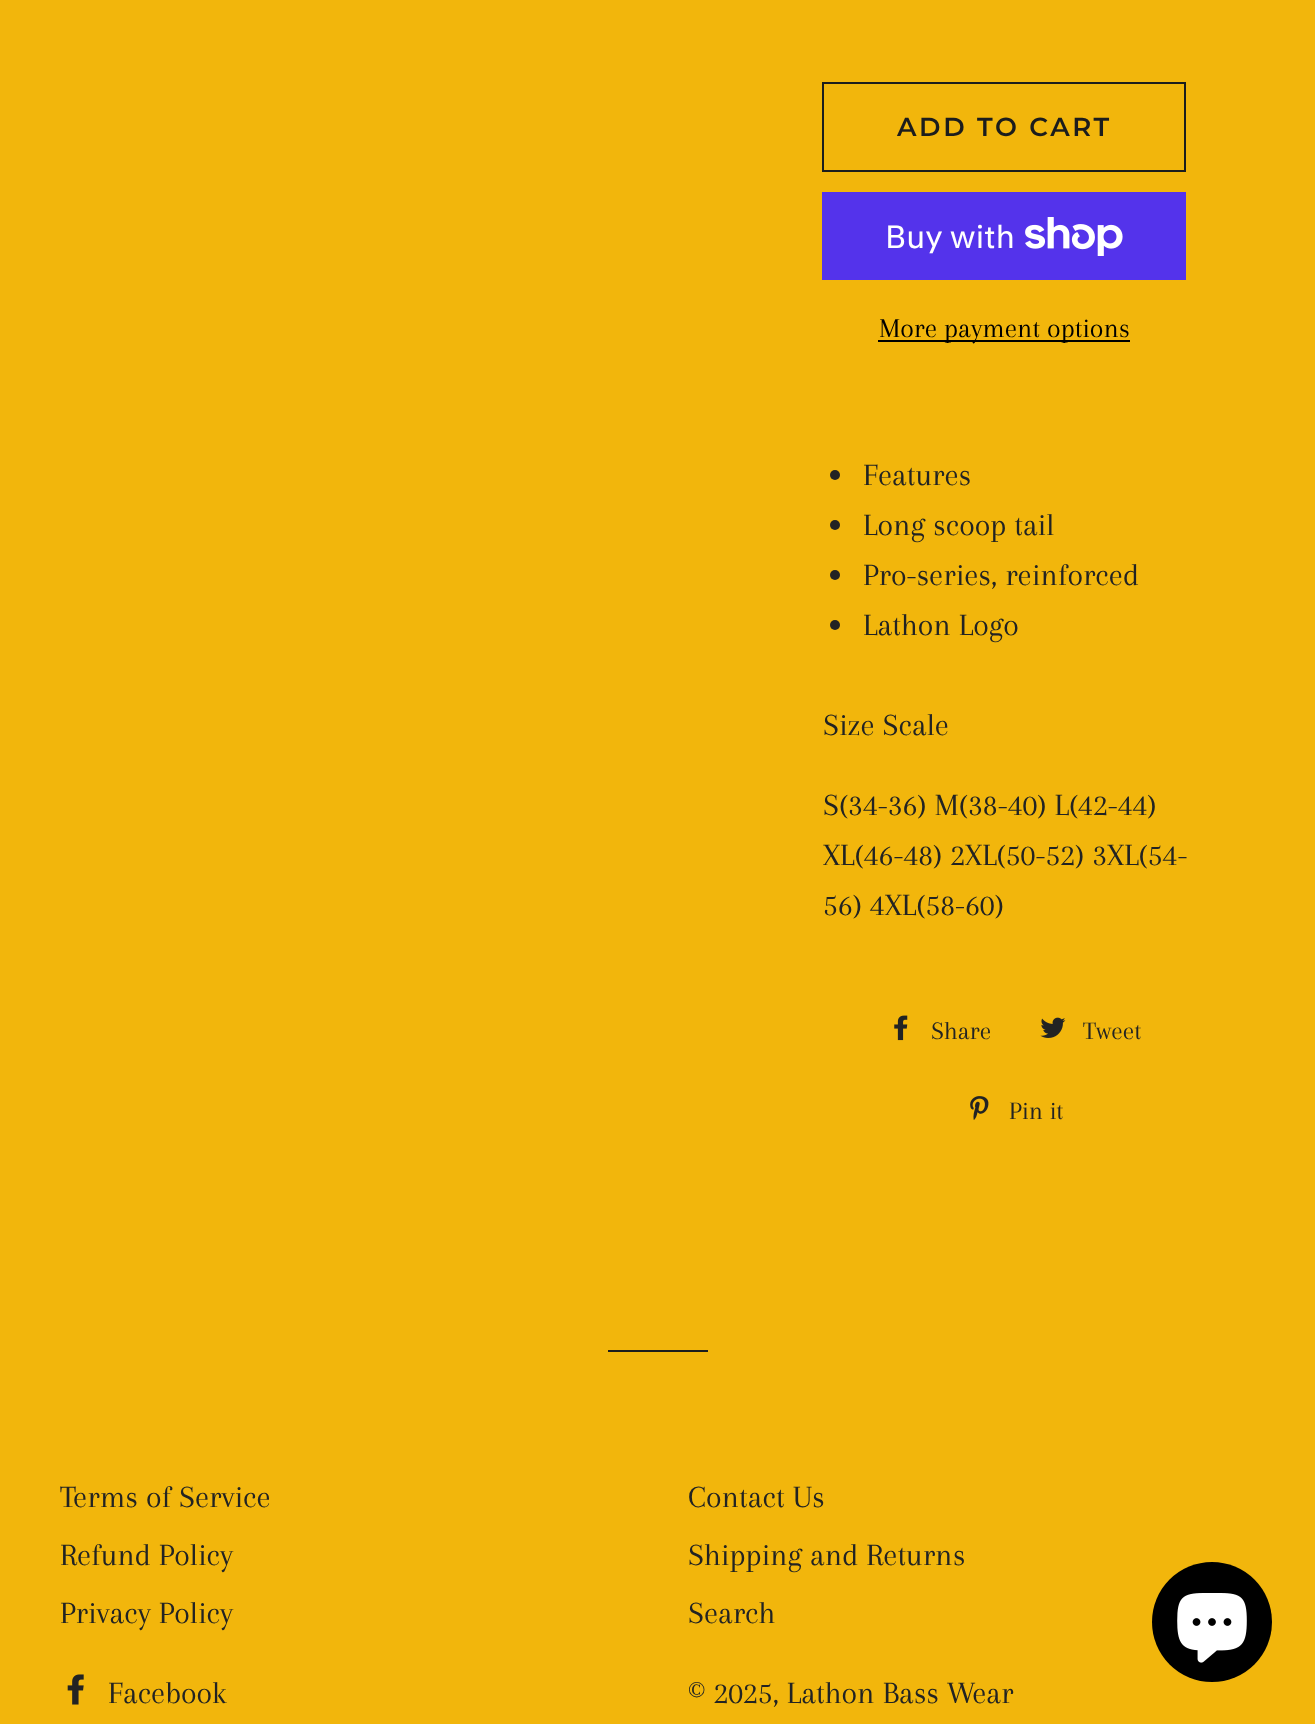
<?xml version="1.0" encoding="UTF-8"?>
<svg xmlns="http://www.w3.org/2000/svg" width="1315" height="1724">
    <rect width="100%" height="100%" fill="#F2B60C"/>
    <rect x="823" y="83" width="362" height="88" fill="none" stroke="#1C1D1D" stroke-width="2"/>
    <text x="897" y="136" font-family="Montserrat" font-size="26" font-weight="600" letter-spacing="2.6" fill="#1C1D1D">ADD TO CART</text>
    <rect x="822" y="192" width="364" height="88" fill="#5433EB"/>
    <text x="885" y="248" font-family="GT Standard" font-size="32" fill="#FFFFFF">Buy with</text>
    <image x="1025" y="217" width="98" height="39" href="img_01.png"/>
    <rect x="878" y="340" width="252" height="2" fill="#000000"/>
    <text x="879" y="337" font-family="Arapey" font-size="28" fill="#000000">More payment options</text>
    <circle cx="835" cy="475" r="5" fill="#222323"/>
    <text x="863" y="485" font-family="Arapey" font-size="32" fill="#222323">Features</text>
    <circle cx="835" cy="525" r="5" fill="#222323"/>
    <text x="863" y="535" font-family="Arapey" font-size="32" fill="#222323">Long scoop tail</text>
    <circle cx="835" cy="575" r="5" fill="#222323"/>
    <text x="863" y="585" font-family="Arapey" font-size="32" fill="#222323">Pro-series, reinforced</text>
    <circle cx="835" cy="625" r="5" fill="#222323"/>
    <text x="863" y="635" font-family="Arapey" font-size="32" fill="#222323">Lathon Logo</text>
    <text x="823" y="735" font-family="Arapey" font-size="32" fill="#222323">Size Scale</text>
    <text font-family="Arapey" font-size="32" fill="#222323">
        <tspan x="823" y="815">S(34-36) M(38-40) L(42-44)</tspan>
        <tspan x="823" y="865">XL(46-48) 2XL(50-52) 3XL(54-</tspan>
        <tspan x="823" y="915">56) 4XL(58-60)</tspan>
    </text>
    <image x="894" y="1015" width="14" height="26" href="img_02.png"/>
    <text x="931" y="1039" font-family="Arapey" font-size="26" fill="#222323">Share</text>
    <image x="1040" y="1017" width="26" height="21" href="img_03.png"/>
    <text x="1083" y="1039" font-family="Arapey" font-size="26" fill="#222323">Tweet</text>
    <image x="970" y="1096" width="19" height="24" href="img_04.png"/>
    <text x="1009" y="1119" font-family="Arapey" font-size="26" fill="#222323">Pin it</text>
    <rect x="608" y="1350" width="100" height="2" fill="#1C1D1D"/>
    <text font-family="Arapey" font-size="32" fill="#222323">
        <tspan x="60" y="1507">Terms of Service</tspan>
        <tspan x="60" y="1565">Refund Policy</tspan>
        <tspan x="60" y="1623">Privacy Policy</tspan>
    </text>
    <text font-family="Arapey" font-size="32" fill="#222323">
        <tspan x="688" y="1507">Contact Us</tspan>
        <tspan x="688" y="1565">Shipping and Returns</tspan>
        <tspan x="688" y="1623">Search</tspan>
    </text>
    <image x="67" y="1674" width="17" height="31" href="img_05.png"/>
    <text x="108" y="1703" font-family="Arapey" font-size="32" fill="#222323">Facebook</text>
    <text x="688" y="1703" font-family="Arapey" font-size="32" fill="#222323">© 2025, Lathon Bass Wear</text>
    <circle cx="1212" cy="1622" r="60" fill="#000000"/>
    <image x="1177" y="1593" width="70" height="70" href="img_06.png"/>
</svg>
